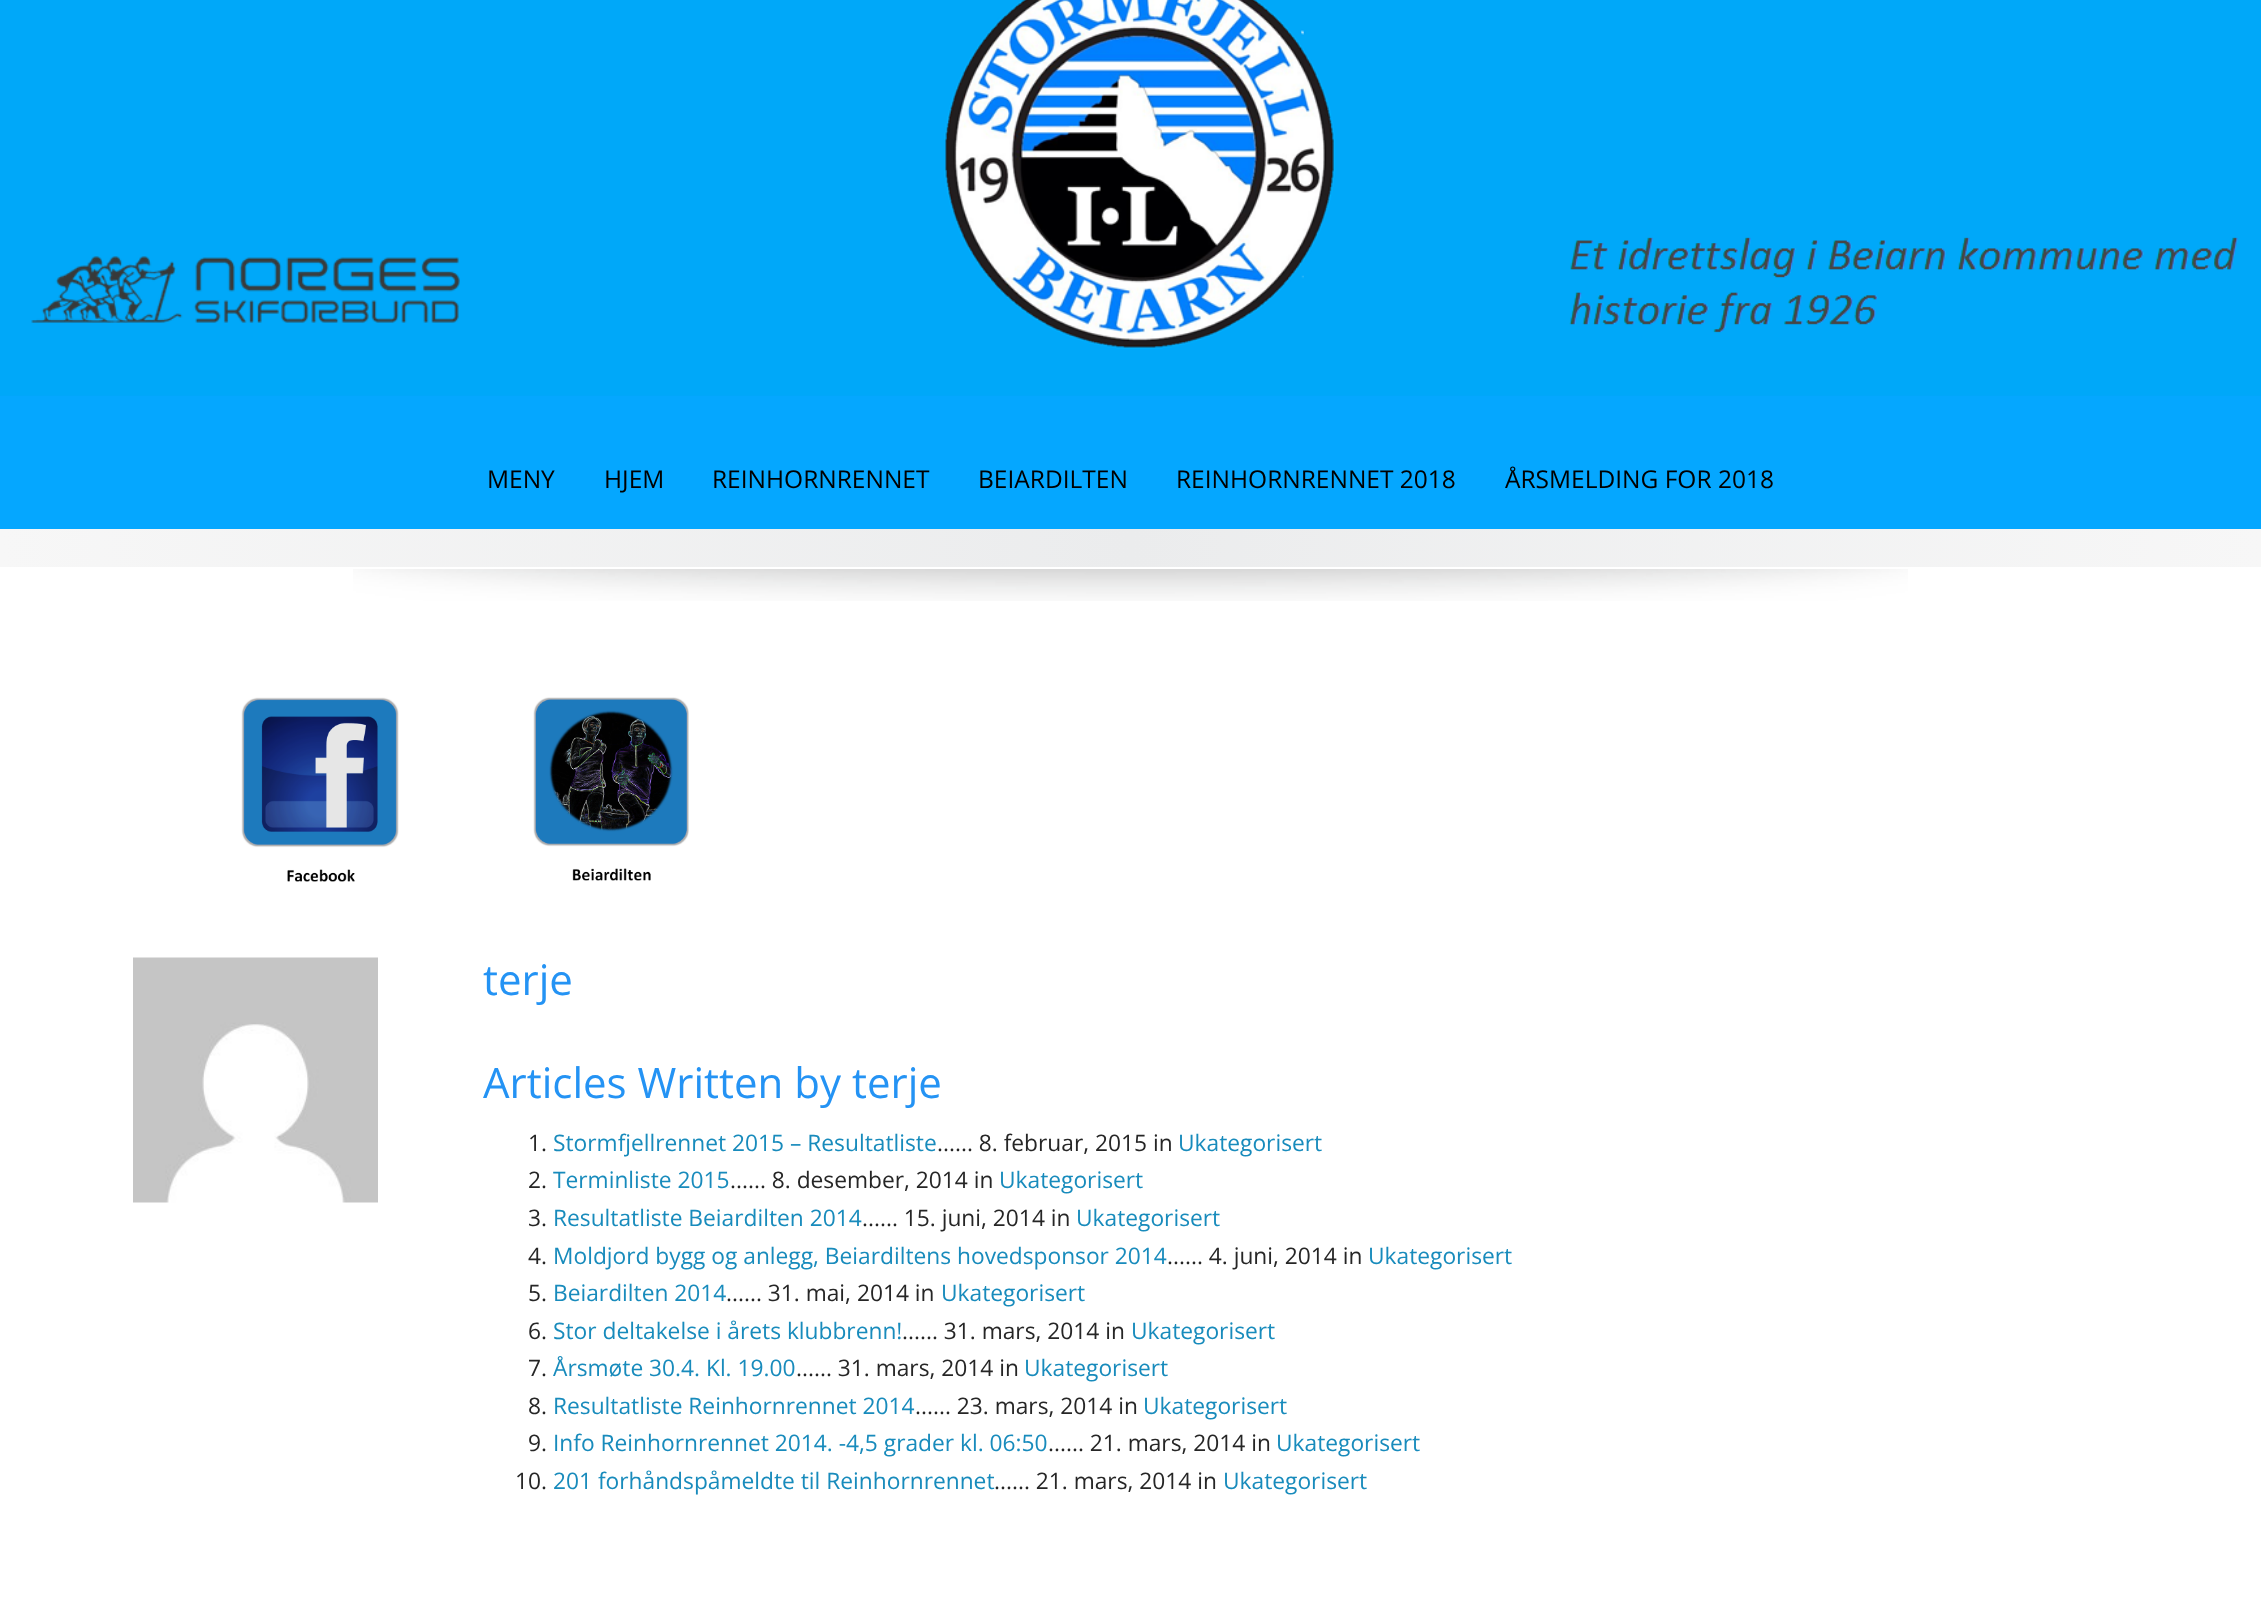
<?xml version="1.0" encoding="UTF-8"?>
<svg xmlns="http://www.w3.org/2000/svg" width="2261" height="1600">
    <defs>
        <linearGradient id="g1" gradientUnits="userSpaceOnUse" x1="0" y1="548" x2="2261" y2="548"><stop offset="0" stop-color="#F7F7F7"/><stop offset="0.5" stop-color="#EBECED"/><stop offset="1" stop-color="#F7F7F7"/></linearGradient>
    </defs>
    <rect width="100%" height="100%" fill="#FFFFFF"/>
    <rect x="0" y="395" width="2261" height="134" fill="#05A7FF"/>
    <image x="0" y="0" width="2261" height="396" href="img_01.png"/>
    <text x="487" y="488" font-family="Open Sans" font-size="24.5" fill="#000000">MENY</text>
    <text x="604" y="488" font-family="Open Sans" font-size="24.5" fill="#000000">HJEM</text>
    <text x="712" y="488" font-family="Open Sans" font-size="24.5" fill="#000000">REINHORNRENNET</text>
    <text x="978" y="488" font-family="Open Sans" font-size="24.5" fill="#000000">BEIARDILTEN</text>
    <text x="1176" y="488" font-family="Open Sans" font-size="24.5" fill="#000000">REINHORNRENNET 2018</text>
    <text x="1505" y="488" font-family="Open Sans" font-size="24.5" fill="#000000">ÅRSMELDING FOR 2018</text>
    <rect x="0" y="529" width="2261" height="38" fill="url(#g1)"/>
    <image x="353" y="569" width="1555" height="32" href="img_02.png"/>
    <image x="241" y="697" width="158" height="185" href="img_03.png"/>
    <image x="533" y="697" width="156" height="184" href="img_04.png"/>
    <image x="133" y="957" width="245" height="246" href="img_05.png"/>
    <text x="483" y="995" font-family="Open Sans" font-size="42" fill="#2493F4">terje</text>
    <text x="483" y="1098" font-family="Open Sans" font-size="42" fill="#2493F4">Articles Written by terje</text>
    <text x="528" y="1151" font-family="Open Sans" font-size="22.75" fill="#262626">1.</text>
    <text x="553" y="1151" font-family="Open Sans" font-size="22.75" fill="#188BBC">Stormfjellrennet 2015 – Resultatliste</text>
    <text x="937" y="1151" font-family="Open Sans" font-size="22.75" fill="#262626">...... 8. februar, 2015 in</text>
    <text x="1178" y="1151" font-family="Open Sans" font-size="22.75" fill="#188BBC">Ukategorisert</text>
    <text x="528" y="1188" font-family="Open Sans" font-size="22.75" fill="#262626">2.</text>
    <text x="553" y="1188" font-family="Open Sans" font-size="22.75" fill="#188BBC">Terminliste 2015</text>
    <text x="730" y="1188" font-family="Open Sans" font-size="22.75" fill="#262626">...... 8. desember, 2014 in</text>
    <text x="999" y="1188" font-family="Open Sans" font-size="22.75" fill="#188BBC">Ukategorisert</text>
    <text x="528" y="1226" font-family="Open Sans" font-size="22.75" fill="#262626">3.</text>
    <text x="553" y="1226" font-family="Open Sans" font-size="22.75" fill="#188BBC">Resultatliste Beiardilten 2014</text>
    <text x="862" y="1226" font-family="Open Sans" font-size="22.75" fill="#262626">...... 15. juni, 2014 in</text>
    <text x="1076" y="1226" font-family="Open Sans" font-size="22.75" fill="#188BBC">Ukategorisert</text>
    <text x="528" y="1264" font-family="Open Sans" font-size="22.75" fill="#262626">4.</text>
    <text x="553" y="1264" font-family="Open Sans" font-size="22.75" fill="#188BBC">Moldjord bygg og anlegg, Beiardiltens hovedsponsor 2014</text>
    <text x="1167" y="1264" font-family="Open Sans" font-size="22.75" fill="#262626">...... 4. juni, 2014 in</text>
    <text x="1368" y="1264" font-family="Open Sans" font-size="22.75" fill="#188BBC">Ukategorisert</text>
    <text x="528" y="1301" font-family="Open Sans" font-size="22.75" fill="#262626">5.</text>
    <text x="553" y="1301" font-family="Open Sans" font-size="22.75" fill="#188BBC">Beiardilten 2014</text>
    <text x="726" y="1301" font-family="Open Sans" font-size="22.75" fill="#262626">...... 31. mai, 2014 in</text>
    <text x="941" y="1301" font-family="Open Sans" font-size="22.75" fill="#188BBC">Ukategorisert</text>
    <text x="528" y="1339" font-family="Open Sans" font-size="22.75" fill="#262626">6.</text>
    <text x="553" y="1339" font-family="Open Sans" font-size="22.75" fill="#188BBC">Stor deltakelse i årets klubbrenn!</text>
    <text x="902" y="1339" font-family="Open Sans" font-size="22.75" fill="#262626">...... 31. mars, 2014 in</text>
    <text x="1131" y="1339" font-family="Open Sans" font-size="22.75" fill="#188BBC">Ukategorisert</text>
    <text x="528" y="1376" font-family="Open Sans" font-size="22.75" fill="#262626">7.</text>
    <text x="553" y="1376" font-family="Open Sans" font-size="22.75" fill="#188BBC">Årsmøte 30.4. Kl. 19.00</text>
    <text x="796" y="1376" font-family="Open Sans" font-size="22.75" fill="#262626">...... 31. mars, 2014 in</text>
    <text x="1024" y="1376" font-family="Open Sans" font-size="22.75" fill="#188BBC">Ukategorisert</text>
    <text x="528" y="1414" font-family="Open Sans" font-size="22.75" fill="#262626">8.</text>
    <text x="553" y="1414" font-family="Open Sans" font-size="22.75" fill="#188BBC">Resultatliste Reinhornrennet 2014</text>
    <text x="915" y="1414" font-family="Open Sans" font-size="22.75" fill="#262626">...... 23. mars, 2014 in</text>
    <text x="1143" y="1414" font-family="Open Sans" font-size="22.75" fill="#188BBC">Ukategorisert</text>
    <text x="528" y="1451" font-family="Open Sans" font-size="22.75" fill="#262626">9.</text>
    <text x="553" y="1451" font-family="Open Sans" font-size="22.75" fill="#188BBC">Info Reinhornrennet 2014. -4,5 grader kl. 06:50</text>
    <text x="1048" y="1451" font-family="Open Sans" font-size="22.75" fill="#262626">...... 21. mars, 2014 in</text>
    <text x="1276" y="1451" font-family="Open Sans" font-size="22.75" fill="#188BBC">Ukategorisert</text>
    <text x="515" y="1489" font-family="Open Sans" font-size="22.75" fill="#262626">10.</text>
    <text x="553" y="1489" font-family="Open Sans" font-size="22.75" fill="#188BBC">201 forhåndspåmeldte til Reinhornrennet</text>
    <text x="994" y="1489" font-family="Open Sans" font-size="22.75" fill="#262626">...... 21. mars, 2014 in</text>
    <text x="1223" y="1489" font-family="Open Sans" font-size="22.75" fill="#188BBC">Ukategorisert</text>
</svg>
